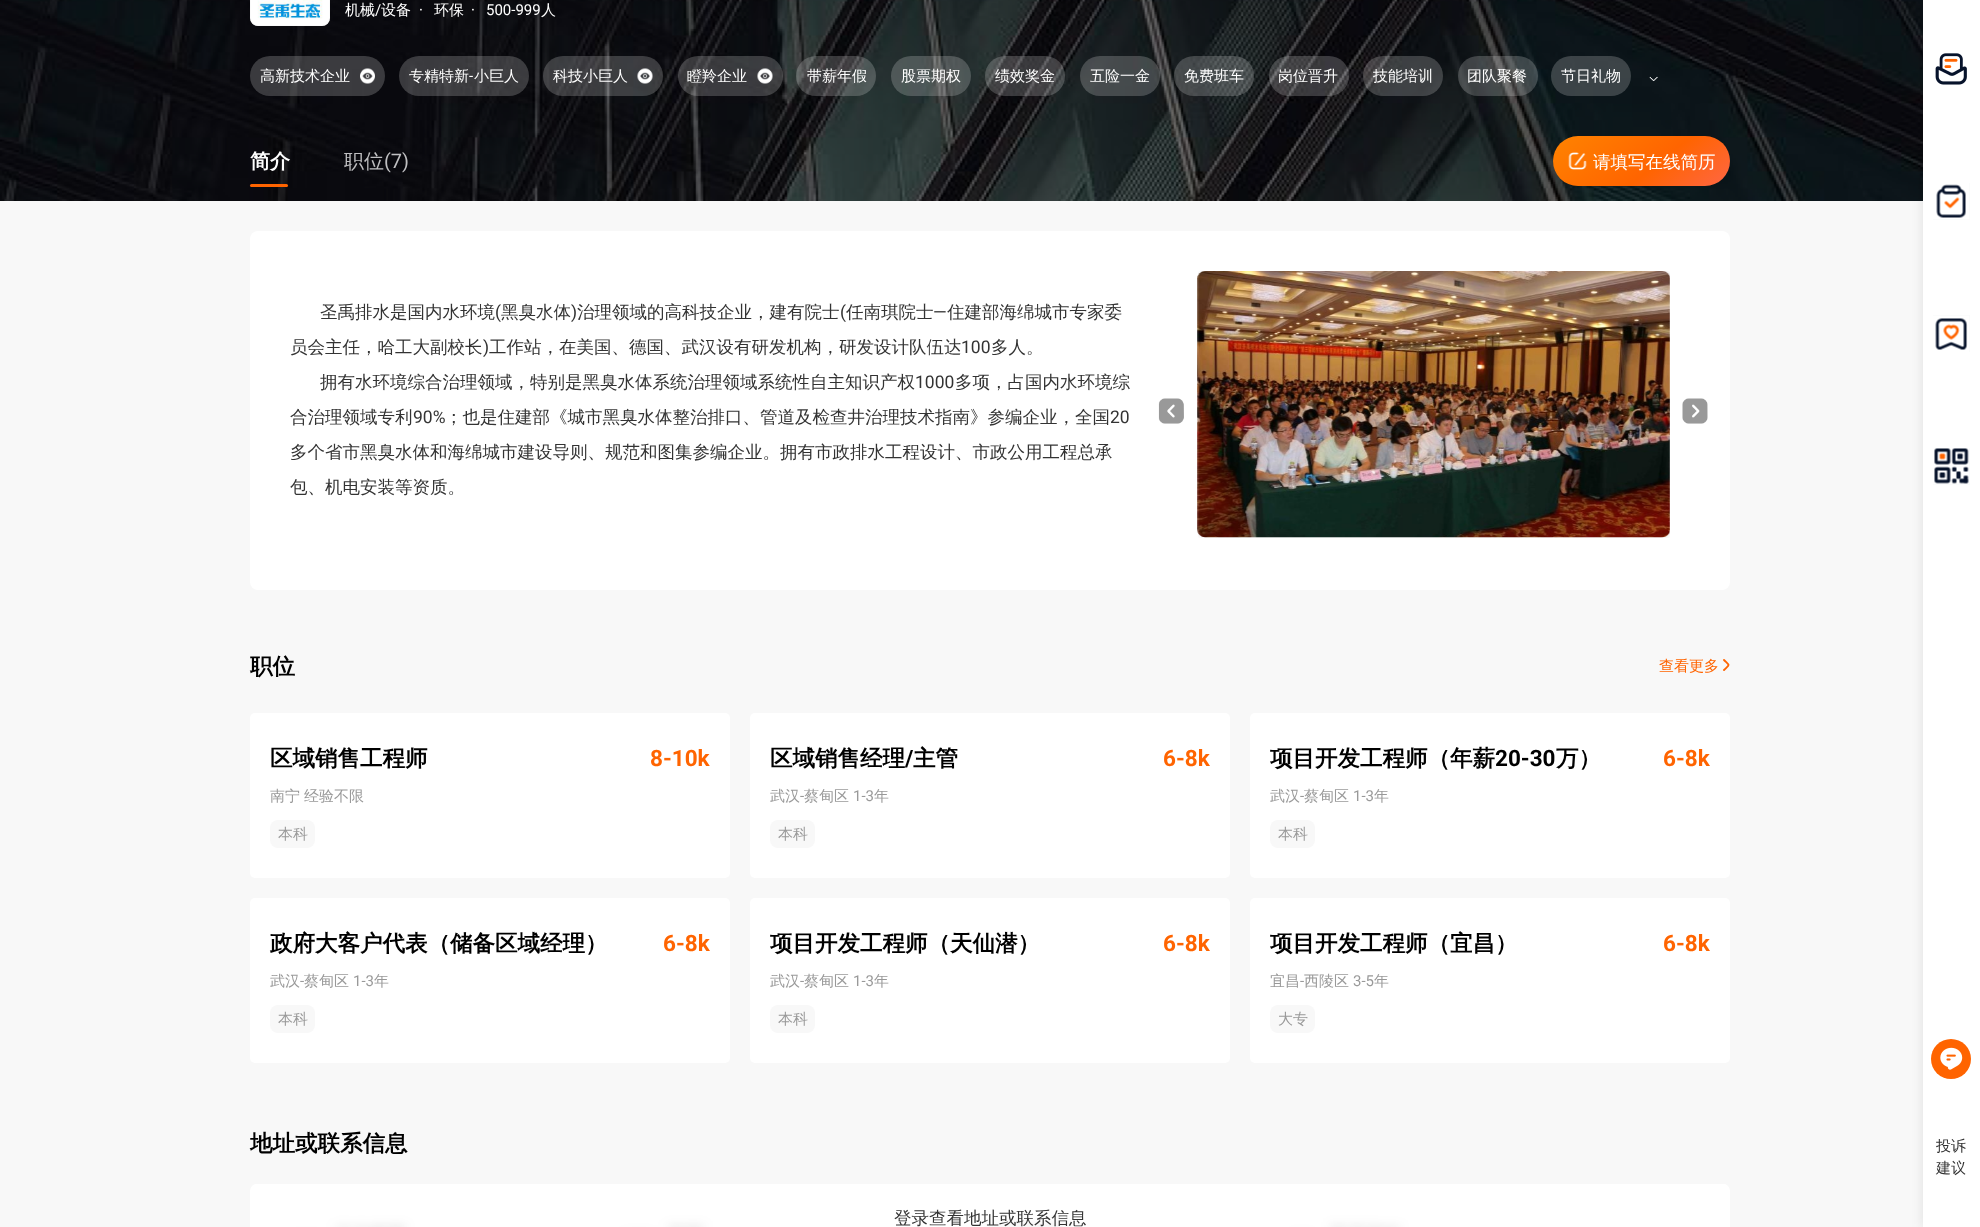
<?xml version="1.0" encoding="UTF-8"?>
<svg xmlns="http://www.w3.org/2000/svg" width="1980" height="1227">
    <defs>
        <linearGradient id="g1" gradientUnits="userSpaceOnUse" x1="1595" y1="103" x2="1687" y2="220"><stop offset="0" stop-color="#FF8300"/><stop offset="0.58" stop-color="#FF6400"/><stop offset="1" stop-color="#FF6644"/></linearGradient>
        <filter id="blur1" x="-50%" y="-200%" width="200%" height="500%"><feGaussianBlur stdDeviation="6"/></filter>
    </defs>
    <rect width="100%" height="100%" fill="#F8F8F8"/>
    <image x="0" y="0" width="1923" height="201" href="img_01.png"/>
    <rect x="250" y="-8" width="80" height="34" rx="8" fill="#FFFFFF"/>
    <rect x="250.5" y="-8.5" width="79" height="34" rx="7.5" fill="none" stroke="#F5F5F5" stroke-opacity="0.5"/>
    <image x="257" y="0" width="66" height="19" href="img_02.png"/>
    <text x="345" y="15" font-family="WenQuanYi Zen Hei" font-size="15" font-weight="500" fill="#FFFFFF">机械</text>
    <text x="375" y="15" font-family="Roboto" font-size="15" fill="#FFFFFF">/</text>
    <text x="381" y="15" font-family="WenQuanYi Zen Hei" font-size="15" font-weight="500" fill="#FFFFFF">设备</text>
    <text x="419" y="15" font-family="Roboto" font-size="15" fill="#FFFFFF">·</text>
    <text x="434" y="15" font-family="WenQuanYi Zen Hei" font-size="15" font-weight="500" fill="#FFFFFF">环保</text>
    <text x="471" y="15" font-family="Roboto" font-size="15" fill="#FFFFFF">·</text>
    <text x="486" y="15" font-family="Roboto" font-size="15" fill="#FFFFFF">500-999</text>
    <text x="541" y="15" font-family="WenQuanYi Zen Hei" font-size="15" font-weight="500" fill="#FFFFFF">人</text>
    <rect x="250" y="56" width="135" height="40" rx="20" fill="#FFFFFF" fill-opacity="0.2"/>
    <text x="260" y="81" font-family="WenQuanYi Zen Hei" font-size="15" font-weight="500" fill="#FFFFFF">高新技术企业</text>
    <image x="360" y="68" width="15" height="16" href="img_03.png"/>
    <rect x="399" y="56" width="130" height="40" rx="20" fill="#FFFFFF" fill-opacity="0.2"/>
    <text x="409" y="81" font-family="WenQuanYi Zen Hei" font-size="15" font-weight="500" fill="#FFFFFF">专精特新</text>
    <text x="469" y="81" font-family="Roboto" font-size="15" fill="#FFFFFF">-</text>
    <text x="474" y="81" font-family="WenQuanYi Zen Hei" font-size="15" font-weight="500" fill="#FFFFFF">小巨人</text>
    <rect x="543" y="56" width="120" height="40" rx="20" fill="#FFFFFF" fill-opacity="0.2"/>
    <text x="553" y="81" font-family="WenQuanYi Zen Hei" font-size="15" font-weight="500" fill="#FFFFFF">科技小巨人</text>
    <image x="637" y="68" width="16" height="16" href="img_04.png"/>
    <rect x="678" y="56" width="105" height="40" rx="20" fill="#FFFFFF" fill-opacity="0.2"/>
    <text x="687" y="81" font-family="WenQuanYi Zen Hei" font-size="15" font-weight="500" fill="#FFFFFF">瞪羚企业</text>
    <image x="757" y="68" width="16" height="16" href="img_05.png"/>
    <rect x="796" y="56" width="80" height="40" rx="20" fill="#FFFFFF" fill-opacity="0.2"/>
    <text x="807" y="81" font-family="WenQuanYi Zen Hei" font-size="15" font-weight="500" fill="#FFFFFF">带薪年假</text>
    <rect x="891" y="56" width="80" height="40" rx="20" fill="#FFFFFF" fill-opacity="0.2"/>
    <text x="901" y="81" font-family="WenQuanYi Zen Hei" font-size="15" font-weight="500" fill="#FFFFFF">股票期权</text>
    <rect x="985" y="56" width="80" height="40" rx="20" fill="#FFFFFF" fill-opacity="0.2"/>
    <text x="995" y="81" font-family="WenQuanYi Zen Hei" font-size="15" font-weight="500" fill="#FFFFFF">绩效奖金</text>
    <rect x="1080" y="56" width="80" height="40" rx="20" fill="#FFFFFF" fill-opacity="0.2"/>
    <text x="1090" y="81" font-family="WenQuanYi Zen Hei" font-size="15" font-weight="500" fill="#FFFFFF">五险一金</text>
    <rect x="1174" y="56" width="80" height="40" rx="20" fill="#FFFFFF" fill-opacity="0.2"/>
    <text x="1184" y="81" font-family="WenQuanYi Zen Hei" font-size="15" font-weight="500" fill="#FFFFFF">免费班车</text>
    <rect x="1269" y="56" width="80" height="40" rx="20" fill="#FFFFFF" fill-opacity="0.2"/>
    <text x="1278" y="81" font-family="WenQuanYi Zen Hei" font-size="15" font-weight="500" fill="#FFFFFF">岗位晋升</text>
    <rect x="1363" y="56" width="80" height="40" rx="20" fill="#FFFFFF" fill-opacity="0.2"/>
    <text x="1373" y="81" font-family="WenQuanYi Zen Hei" font-size="15" font-weight="500" fill="#FFFFFF">技能培训</text>
    <rect x="1458" y="56" width="80" height="40" rx="20" fill="#FFFFFF" fill-opacity="0.2"/>
    <text x="1467" y="81" font-family="WenQuanYi Zen Hei" font-size="15" font-weight="500" fill="#FFFFFF">团队聚餐</text>
    <rect x="1551" y="56" width="80" height="40" rx="20" fill="#FFFFFF" fill-opacity="0.2"/>
    <text x="1561" y="81" font-family="WenQuanYi Zen Hei" font-size="15" font-weight="500" fill="#FFFFFF">节日礼物</text>
    <image x="1649" y="76" width="9" height="5" href="img_06.png"/>
    <text x="250" y="168" font-family="WenQuanYi Zen Hei" font-size="20" font-weight="700" fill="#FFFFFF">简介</text>
    <rect x="250" y="184" width="38" height="3" rx="1.5" fill="#FF6400"/>
    <text x="344" y="168" font-family="WenQuanYi Zen Hei" font-size="20" font-weight="500" fill="#BFBFC1">职位</text>
    <text x="384" y="168" font-family="Roboto" font-size="20" fill="#BFBFC1">(7)</text>
    <rect x="1553" y="136" width="177" height="50" rx="25" fill="url(#g1)"/>
    <image x="1568" y="152" width="19" height="18" href="img_07.png"/>
    <text x="1593" y="168" font-family="WenQuanYi Zen Hei" font-size="17.5" font-weight="500" fill="#FFFFFF">请填写在线简历</text>
    <rect x="250" y="231" width="1480" height="359" rx="8" fill="#FFFFFF"/>
    <text x="320" y="318" font-family="WenQuanYi Zen Hei" font-size="17.5" font-weight="500" fill="#333333">圣禹排水是国内水环境</text>
    <text x="495" y="318" font-family="Roboto" font-size="17.5" fill="#333333">(</text>
    <text x="501" y="318" font-family="WenQuanYi Zen Hei" font-size="17.5" font-weight="500" fill="#333333">黑臭水体</text>
    <text x="571" y="318" font-family="Roboto" font-size="17.5" fill="#333333">)</text>
    <text x="577" y="318" font-family="WenQuanYi Zen Hei" font-size="17.5" font-weight="500" fill="#333333">治理领域的高科技企业，建有院士</text>
    <text x="840" y="318" font-family="Roboto" font-size="17.5" fill="#333333">(</text>
    <text x="846" y="318" font-family="WenQuanYi Zen Hei" font-size="17.5" font-weight="500" fill="#333333">任南琪院士</text>
    <text x="933" y="318" font-family="Roboto" font-size="17.5" fill="#333333">—</text>
    <text x="947" y="318" font-family="WenQuanYi Zen Hei" font-size="17.5" font-weight="500" fill="#333333">住建部海绵城市专家委</text>
    <text x="290" y="353" font-family="WenQuanYi Zen Hei" font-size="17.5" font-weight="500" fill="#333333">员会主任，哈工大副校长</text>
    <text x="483" y="353" font-family="Roboto" font-size="17.5" fill="#333333">)</text>
    <text x="489" y="353" font-family="WenQuanYi Zen Hei" font-size="17.5" font-weight="500" fill="#333333">工作站，在美国、德国、武汉设有研发机构，研发设计队伍达</text>
    <text x="961" y="353" font-family="Roboto" font-size="17.5" fill="#333333">100</text>
    <text x="991" y="353" font-family="WenQuanYi Zen Hei" font-size="17.5" font-weight="500" fill="#333333">多人。</text>
    <text x="320" y="388" font-family="WenQuanYi Zen Hei" font-size="17.5" font-weight="500" fill="#333333">拥有水环境综合治理领域，特别是黑臭水体系统治理领域系统性自主知识产权</text>
    <text x="915" y="388" font-family="Roboto" font-size="17.5" fill="#333333">1000</text>
    <text x="955" y="388" font-family="WenQuanYi Zen Hei" font-size="17.5" font-weight="500" fill="#333333">多项，占国内水环境综</text>
    <text x="290" y="423" font-family="WenQuanYi Zen Hei" font-size="17.5" font-weight="500" fill="#333333">合治理领域专利</text>
    <text x="413" y="423" font-family="Roboto" font-size="17.5" fill="#333333">90%</text>
    <text x="445" y="423" font-family="WenQuanYi Zen Hei" font-size="17.5" font-weight="500" fill="#333333">；也是住建部《城市黑臭水体整治排口、管道及检查井治理技术指南》参编企业，全国</text>
    <text x="1110" y="423" font-family="Roboto" font-size="17.5" fill="#333333">20</text>
    <text x="290" y="458" font-family="WenQuanYi Zen Hei" font-size="17.5" font-weight="500" fill="#333333">多个省市黑臭水体和海绵城市建设导则、规范和图集参编企业。拥有市政排水工程设计、市政公用工程总承</text>
    <text x="290" y="493" font-family="WenQuanYi Zen Hei" font-size="17.5" font-weight="500" fill="#333333">包、机电安装等资质。</text>
    <rect x="1198" y="271" width="472" height="267" rx="2.5" fill="#F8F8F8"/>
    <image x="1197" y="271" width="473" height="267" href="img_08.png"/>
    <image x="1158" y="398" width="26" height="26" href="img_09.png"/>
    <image x="1682" y="398" width="26" height="26" href="img_10.png"/>
    <text x="250" y="674" font-family="WenQuanYi Zen Hei" font-size="22.5" font-weight="700" fill="#000000">职位</text>
    <text x="1659" y="671" font-family="WenQuanYi Zen Hei" font-size="15" font-weight="500" fill="#FF6400">查看更多</text>
    <path d="M 1724 660 C 1730 666 1730 664 1724 670" fill="none" stroke="#FF6400" stroke-width="1.9" stroke-linecap="round"/>
    <rect x="250" y="713" width="480" height="165" rx="5" fill="#FFFFFF"/>
    <text x="270" y="766" font-family="WenQuanYi Zen Hei" font-size="22.5" font-weight="700" fill="#000000">区域销售工程师</text>
    <text x="650" y="766" font-family="Roboto" font-size="22.5" font-weight="700" fill="#FF6400">8-10k</text>
    <text x="270" y="801" font-family="WenQuanYi Zen Hei" font-size="15" font-weight="500" fill="#999999">南宁</text>
    <text x="304" y="801" font-family="WenQuanYi Zen Hei" font-size="15" font-weight="500" fill="#999999">经验不限</text>
    <rect x="270" y="820" width="45" height="28" rx="8" fill="#F8F8F8"/>
    <text x="278" y="839" font-family="WenQuanYi Zen Hei" font-size="15" font-weight="500" fill="#999999">本科</text>
    <rect x="750" y="713" width="480" height="165" rx="5" fill="#FFFFFF"/>
    <text x="770" y="766" font-family="WenQuanYi Zen Hei" font-size="22.5" font-weight="700" fill="#000000">区域销售经理</text>
    <text x="905" y="766" font-family="Roboto" font-size="22.5" font-weight="700" fill="#000000">/</text>
    <text x="913" y="766" font-family="WenQuanYi Zen Hei" font-size="22.5" font-weight="700" fill="#000000">主管</text>
    <text x="1163" y="766" font-family="Roboto" font-size="22.5" font-weight="700" fill="#FF6400">6-8k</text>
    <text x="770" y="801" font-family="WenQuanYi Zen Hei" font-size="15" font-weight="500" fill="#999999">武汉</text>
    <text x="800" y="801" font-family="Roboto" font-size="15" fill="#999999">-</text>
    <text x="804" y="801" font-family="WenQuanYi Zen Hei" font-size="15" font-weight="500" fill="#999999">蔡甸区</text>
    <text x="853" y="801" font-family="Roboto" font-size="15" fill="#999999">1-3</text>
    <text x="874" y="801" font-family="WenQuanYi Zen Hei" font-size="15" font-weight="500" fill="#999999">年</text>
    <rect x="770" y="820" width="45" height="28" rx="8" fill="#F8F8F8"/>
    <text x="778" y="839" font-family="WenQuanYi Zen Hei" font-size="15" font-weight="500" fill="#999999">本科</text>
    <rect x="1250" y="713" width="480" height="165" rx="5" fill="#FFFFFF"/>
    <text x="1270" y="766" font-family="WenQuanYi Zen Hei" font-size="22.5" font-weight="700" fill="#000000">项目开发工程师（年薪</text>
    <text x="1495" y="766" font-family="Roboto" font-size="22.5" font-weight="700" fill="#000000">20-30</text>
    <text x="1556" y="766" font-family="WenQuanYi Zen Hei" font-size="22.5" font-weight="700" fill="#000000">万）</text>
    <text x="1663" y="766" font-family="Roboto" font-size="22.5" font-weight="700" fill="#FF6400">6-8k</text>
    <text x="1270" y="801" font-family="WenQuanYi Zen Hei" font-size="15" font-weight="500" fill="#999999">武汉</text>
    <text x="1300" y="801" font-family="Roboto" font-size="15" fill="#999999">-</text>
    <text x="1304" y="801" font-family="WenQuanYi Zen Hei" font-size="15" font-weight="500" fill="#999999">蔡甸区</text>
    <text x="1353" y="801" font-family="Roboto" font-size="15" fill="#999999">1-3</text>
    <text x="1374" y="801" font-family="WenQuanYi Zen Hei" font-size="15" font-weight="500" fill="#999999">年</text>
    <rect x="1270" y="820" width="45" height="28" rx="8" fill="#F8F8F8"/>
    <text x="1278" y="839" font-family="WenQuanYi Zen Hei" font-size="15" font-weight="500" fill="#999999">本科</text>
    <rect x="250" y="898" width="480" height="165" rx="5" fill="#FFFFFF"/>
    <text x="270" y="951" font-family="WenQuanYi Zen Hei" font-size="22.5" font-weight="700" fill="#000000">政府大客户代表（储备区域经理）</text>
    <text x="663" y="951" font-family="Roboto" font-size="22.5" font-weight="700" fill="#FF6400">6-8k</text>
    <text x="270" y="986" font-family="WenQuanYi Zen Hei" font-size="15" font-weight="500" fill="#999999">武汉</text>
    <text x="300" y="986" font-family="Roboto" font-size="15" fill="#999999">-</text>
    <text x="304" y="986" font-family="WenQuanYi Zen Hei" font-size="15" font-weight="500" fill="#999999">蔡甸区</text>
    <text x="353" y="986" font-family="Roboto" font-size="15" fill="#999999">1-3</text>
    <text x="374" y="986" font-family="WenQuanYi Zen Hei" font-size="15" font-weight="500" fill="#999999">年</text>
    <rect x="270" y="1005" width="45" height="28" rx="8" fill="#F8F8F8"/>
    <text x="278" y="1024" font-family="WenQuanYi Zen Hei" font-size="15" font-weight="500" fill="#999999">本科</text>
    <rect x="750" y="898" width="480" height="165" rx="5" fill="#FFFFFF"/>
    <text x="770" y="951" font-family="WenQuanYi Zen Hei" font-size="22.5" font-weight="700" fill="#000000">项目开发工程师（天仙潜）</text>
    <text x="1163" y="951" font-family="Roboto" font-size="22.5" font-weight="700" fill="#FF6400">6-8k</text>
    <text x="770" y="986" font-family="WenQuanYi Zen Hei" font-size="15" font-weight="500" fill="#999999">武汉</text>
    <text x="800" y="986" font-family="Roboto" font-size="15" fill="#999999">-</text>
    <text x="804" y="986" font-family="WenQuanYi Zen Hei" font-size="15" font-weight="500" fill="#999999">蔡甸区</text>
    <text x="853" y="986" font-family="Roboto" font-size="15" fill="#999999">1-3</text>
    <text x="874" y="986" font-family="WenQuanYi Zen Hei" font-size="15" font-weight="500" fill="#999999">年</text>
    <rect x="770" y="1005" width="45" height="28" rx="8" fill="#F8F8F8"/>
    <text x="778" y="1024" font-family="WenQuanYi Zen Hei" font-size="15" font-weight="500" fill="#999999">本科</text>
    <rect x="1250" y="898" width="480" height="165" rx="5" fill="#FFFFFF"/>
    <text x="1270" y="951" font-family="WenQuanYi Zen Hei" font-size="22.5" font-weight="700" fill="#000000">项目开发工程师（宜昌）</text>
    <text x="1663" y="951" font-family="Roboto" font-size="22.5" font-weight="700" fill="#FF6400">6-8k</text>
    <text x="1270" y="986" font-family="WenQuanYi Zen Hei" font-size="15" font-weight="500" fill="#999999">宜昌</text>
    <text x="1300" y="986" font-family="Roboto" font-size="15" fill="#999999">-</text>
    <text x="1304" y="986" font-family="WenQuanYi Zen Hei" font-size="15" font-weight="500" fill="#999999">西陵区</text>
    <text x="1353" y="986" font-family="Roboto" font-size="15" fill="#999999">3-5</text>
    <text x="1374" y="986" font-family="WenQuanYi Zen Hei" font-size="15" font-weight="500" fill="#999999">年</text>
    <rect x="1270" y="1005" width="45" height="28" rx="8" fill="#F8F8F8"/>
    <text x="1278" y="1024" font-family="WenQuanYi Zen Hei" font-size="15" font-weight="500" fill="#999999">大专</text>
    <text x="250" y="1151" font-family="WenQuanYi Zen Hei" font-size="22.5" font-weight="700" fill="#000000">地址或联系信息</text>
    <image x="250" y="1184" width="1480" height="43" href="img_11.png"/>
    <text x="894" y="1224" font-family="WenQuanYi Zen Hei" font-size="17.5" font-weight="500" fill="#333333">登录查看地址或联系信息</text>
    <rect x="1923" y="0" width="57" height="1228" fill="#07132B" fill-opacity="0.1" filter="url(#blur1)"/>
    <rect x="1923" y="0" width="57" height="1227" fill="#FFFFFF"/>
    <image x="1935" y="53" width="32" height="32" href="img_12.png"/>
    <image x="1933" y="183" width="37" height="37" href="img_13.png"/>
    <image x="1933" y="315" width="37" height="37" href="img_14.png"/>
    <image x="1933" y="448" width="37" height="37" href="img_15.png"/>
    <circle cx="1951" cy="1059" r="20" fill="#FF6400"/>
    <image x="1940" y="1047" width="23" height="23" href="img_16.png"/>
    <text font-family="WenQuanYi Zen Hei" font-size="15" font-weight="500" fill="#333333">
        <tspan x="1936" y="1151">投诉</tspan>
        <tspan x="1936" y="1173">建议</tspan>
    </text>
</svg>
